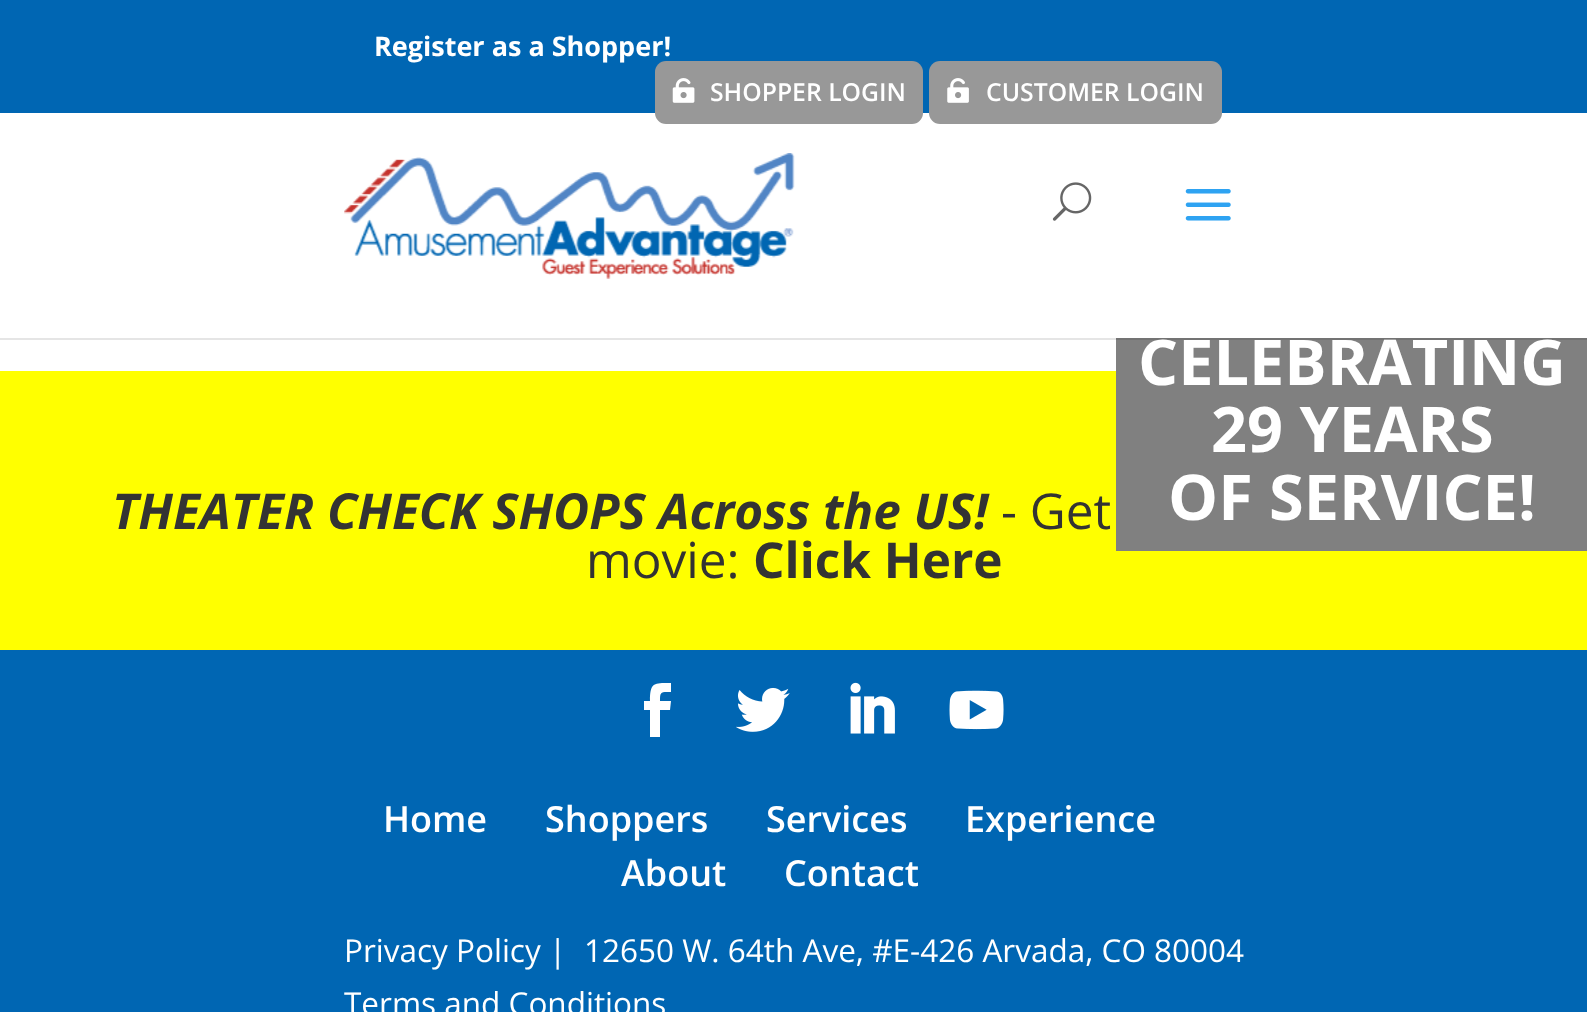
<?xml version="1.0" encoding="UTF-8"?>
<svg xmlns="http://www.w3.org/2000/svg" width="1587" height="1012">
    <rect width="100%" height="100%" fill="#FFFFFF"/>
    <rect x="0" y="0" width="1587" height="113" fill="#0066B3"/>
    <text x="374" y="56" font-family="Open Sans" font-size="27" font-weight="700" fill="#FFFFFF">Register as a Shopper!</text>
    <rect x="655" y="61" width="268" height="63" rx="11" fill="#989898"/>
    <image x="672" y="78" width="23" height="25" href="img_01.png"/>
    <text x="710" y="101" font-family="Open Sans" font-size="24.75" font-weight="600" fill="#FFFFFF">SHOPPER LOGIN</text>
    <rect x="929" y="61" width="293" height="63" rx="11" fill="#989898"/>
    <image x="947" y="78" width="22" height="25" href="img_02.png"/>
    <text x="986" y="101" font-family="Open Sans" font-size="24.75" font-weight="600" fill="#FFFFFF">CUSTOMER LOGIN</text>
    <rect x="0" y="371" width="1587" height="279" fill="#FFFF00"/>
    <rect x="1116" y="338" width="471" height="213" fill="#808080"/>
    <path d="M 0 338 V 340 H 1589 V 115 H 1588 V 338 Z" fill="#000000" fill-opacity="0.1"/>
    <image x="344" y="153" width="451" height="126" href="img_03.png"/>
    <image x="1052" y="182" width="40" height="39" href="img_04.png"/>
    <image x="1185" y="189" width="46" height="32" href="img_05.png"/>
    <text x="112" y="529" font-family="Open Sans" font-size="49.5" font-weight="700" font-style="italic" fill="#333333">THEATER CHECK SHOPS Across the US!</text>
    <text x="1001" y="529" font-family="Open Sans" font-size="49.5" fill="#333333">- Get</text>
    <text x="586" y="578" font-family="Open Sans" font-size="49.5" fill="#333333">movie:</text>
    <text x="753" y="578" font-family="Open Sans" font-size="49.5" font-weight="700" fill="#333333">Click Here</text>
    <rect x="0" y="650" width="1587" height="362" fill="#0066B3"/>
    <path d="M 650 737 H 660 V 710 H 670 L 671 701 H 660 C 660 691 661 692 671 692 V 683 C 654 683 650 682 650 701 H 644 V 710 H 650 Z" fill="#FFFFFF"/>
    <image x="736" y="687" width="54" height="45" href="img_06.png"/>
    <image x="850" y="682" width="45" height="52" href="img_07.png"/>
    <image x="949" y="690" width="55" height="40" href="img_08.png"/>
    <text x="383" y="832" font-family="Open Sans" font-size="36" font-weight="600" fill="#FFFFFF">Home</text>
    <text x="545" y="832" font-family="Open Sans" font-size="36" font-weight="600" fill="#FFFFFF">Shoppers</text>
    <text x="766" y="832" font-family="Open Sans" font-size="36" font-weight="600" fill="#FFFFFF">Services</text>
    <text x="965" y="832" font-family="Open Sans" font-size="36" font-weight="600" fill="#FFFFFF">Experience</text>
    <text x="621" y="886" font-family="Open Sans" font-size="36" font-weight="600" fill="#FFFFFF">About</text>
    <text x="784" y="886" font-family="Open Sans" font-size="36" font-weight="600" fill="#FFFFFF">Contact</text>
    <text font-family="Open Sans" font-size="31.5" fill="#FFFFFF">
        <tspan x="344" y="962">Privacy Policy |</tspan>
        <tspan x="344" y="1015">Terms and Conditions</tspan>
    </text>
    <text x="584" y="962" font-family="Open Sans" font-size="31.5" fill="#FFFFFF">12650 W. 64th Ave, #E-426 Arvada, CO 80004</text>
    <text x="1138" y="385" font-family="Open Sans" font-size="63" font-weight="700" fill="#FFFFFF">CELEBRATING</text>
    <text x="1211" y="452" font-family="Open Sans" font-size="63" font-weight="700" fill="#FFFFFF">29 YEARS</text>
    <text x="1168" y="520" font-family="Open Sans" font-size="63" font-weight="700" fill="#FFFFFF">OF SERVICE!</text>
</svg>
